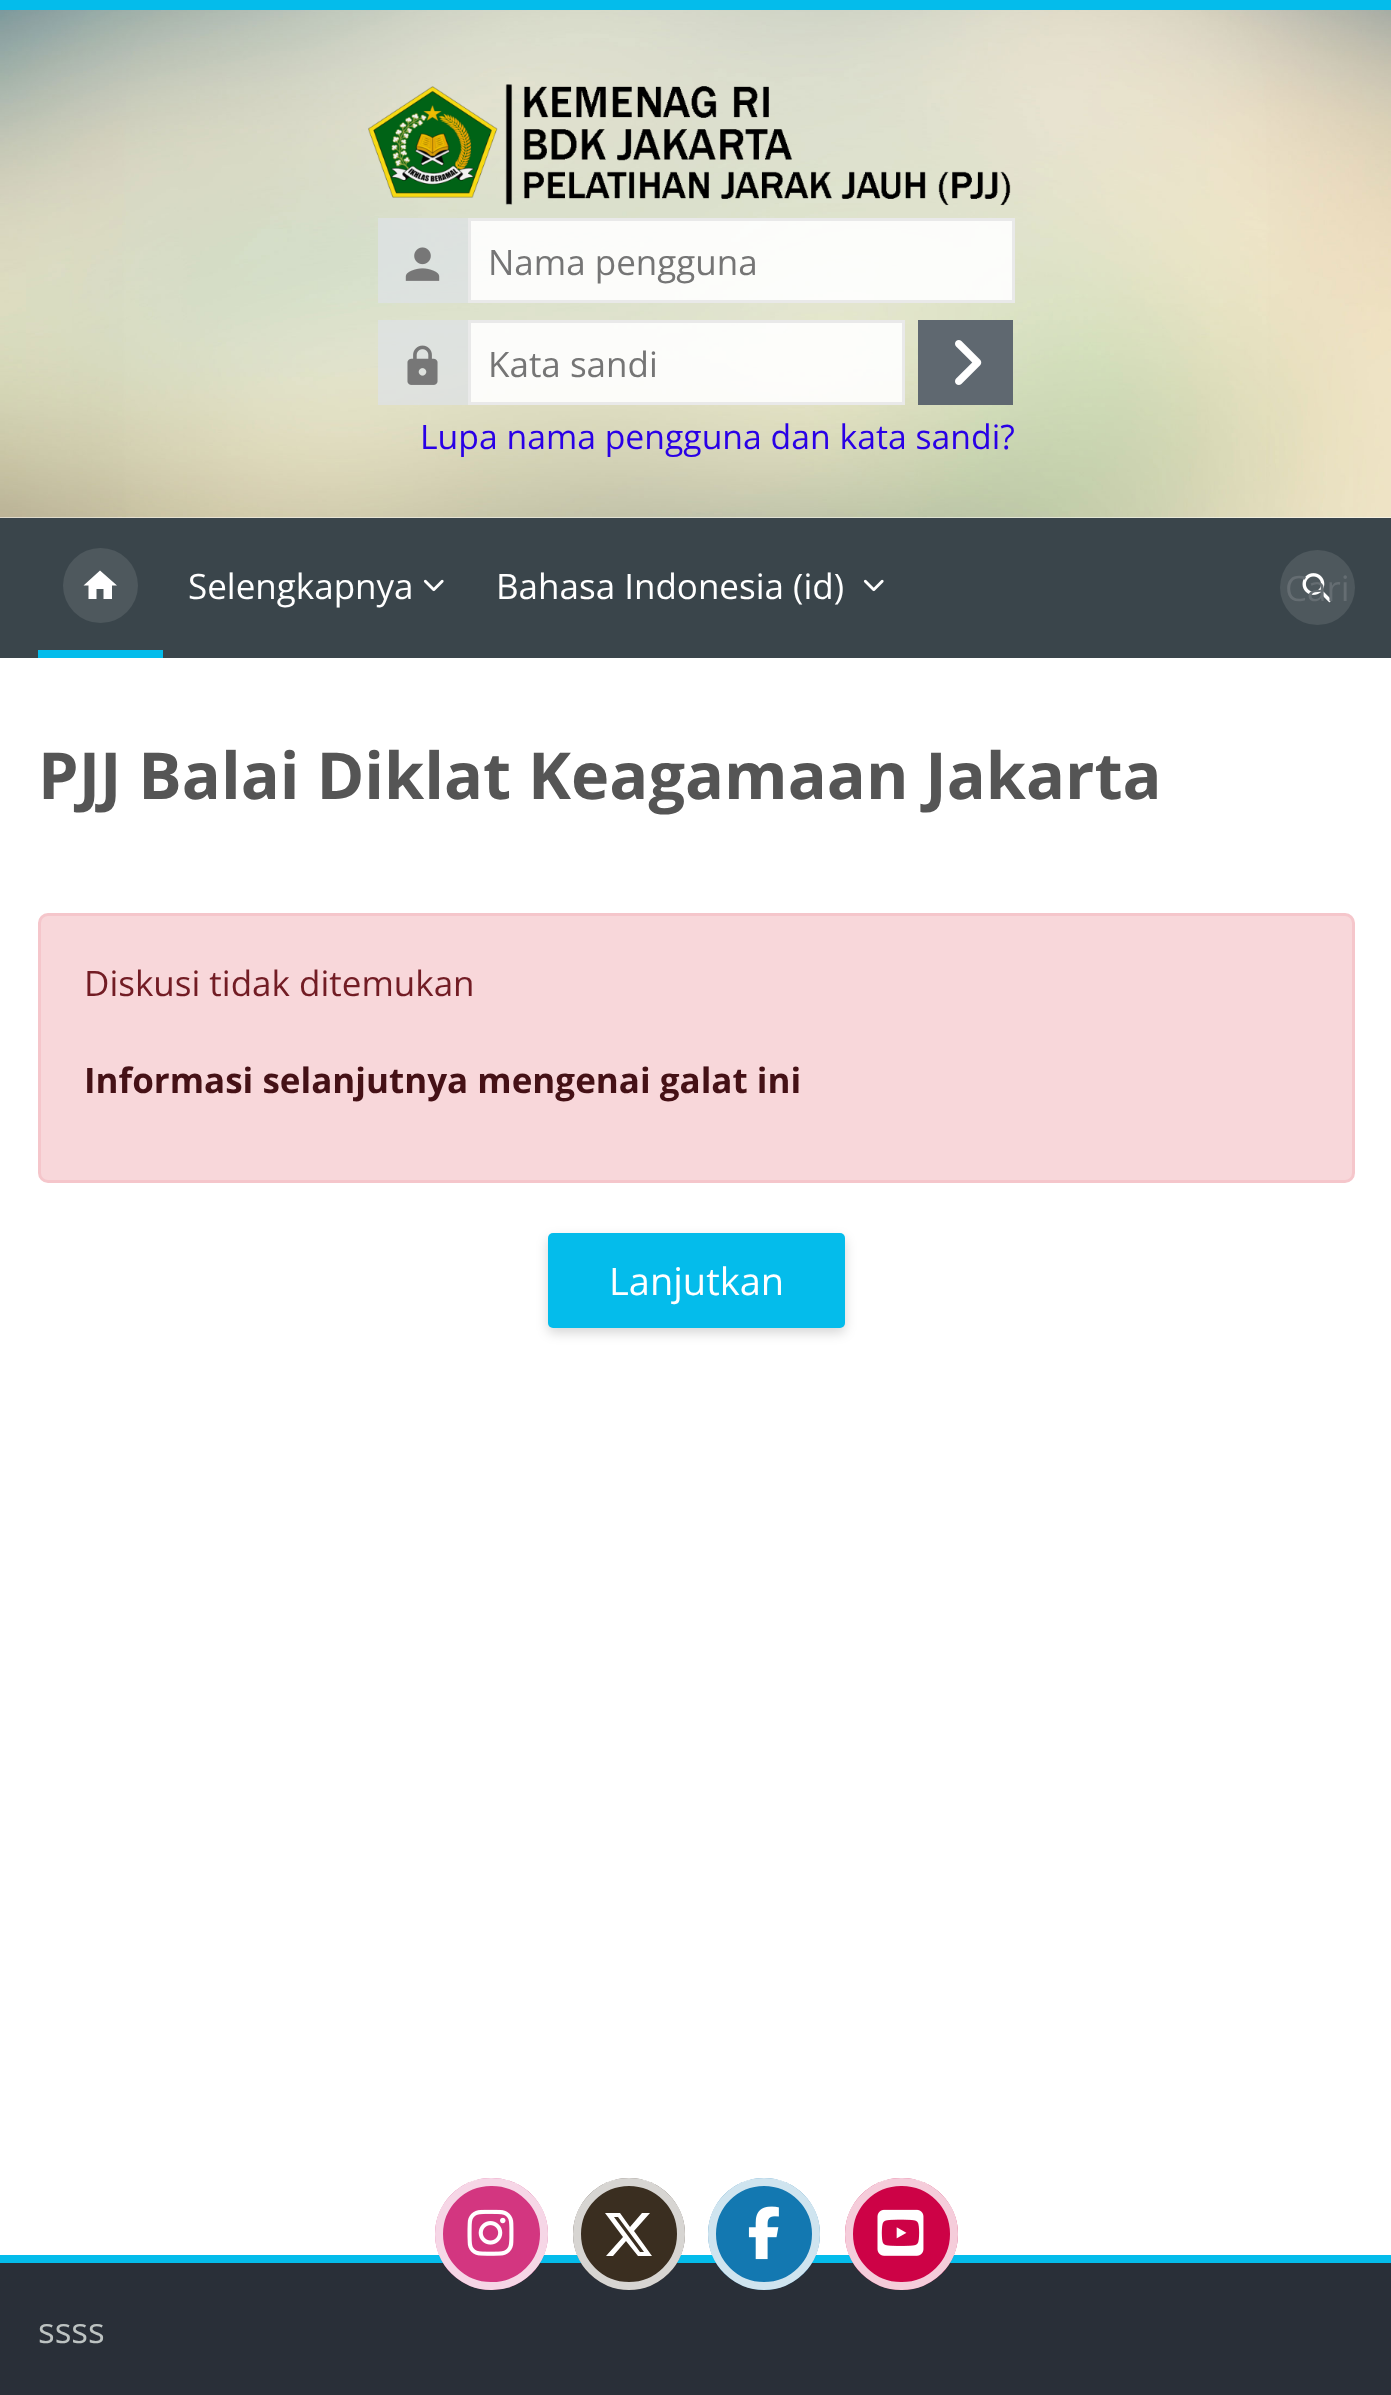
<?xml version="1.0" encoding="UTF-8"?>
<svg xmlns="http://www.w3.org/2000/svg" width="1391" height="2395">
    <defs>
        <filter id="blur1" x="-50%" y="-200%" width="200%" height="500%"><feGaussianBlur stdDeviation="6"/></filter>
    </defs>
    <rect width="100%" height="100%" fill="#FFFFFF"/>
    <rect x="0" y="0" width="1391" height="10" fill="#04BCEB"/>
    <image x="0" y="10" width="1391" height="508" href="img_01.png"/>
    <image x="368" y="84" width="643" height="122" href="img_02.png"/>
    <rect x="378" y="218" width="90" height="85" fill="#DEE2E6" fill-opacity="0.75"/>
    <image x="405" y="247" width="35" height="34" href="img_03.png"/>
    <rect x="469.5" y="219.5" width="544" height="82" fill="#FFFFFF" fill-opacity="0.9" stroke="#E9E9E9" stroke-width="3"/>
    <text x="488" y="275" font-family="Open Sans" font-size="35" fill="#757575">Nama pengguna</text>
    <rect x="378" y="320" width="90" height="85" fill="#DEE2E6" fill-opacity="0.75"/>
    <image x="407" y="345" width="31" height="40" href="img_04.png"/>
    <rect x="469.5" y="321.5" width="434" height="82" fill="#FFFFFF" fill-opacity="0.9" stroke="#E9E9E9" stroke-width="3"/>
    <text x="488" y="377" font-family="Open Sans" font-size="35" fill="#757575">Kata sandi</text>
    <rect x="918" y="320" width="95" height="85" fill="#5F6870"/>
    <image x="955" y="340" width="27" height="45" href="img_05.png"/>
    <text x="420" y="449" font-family="Open Sans" font-size="33.75" fill="#2900E6">Lupa nama pengguna dan kata sandi?</text>
    <rect x="0" y="518" width="1391" height="140" fill="#3A454B"/>
    <rect x="38" y="650" width="125" height="8" fill="#04BCEB"/>
    <circle cx="100.5" cy="585.5" r="37.5" fill="#4E585D"/>
    <path d="M 96.5 599 H 88.5 V 585.5 H 83.5 L 100 570.5 L 117 585.5 H 112 V 599 H 103.5 V 589 H 96.5 Z" fill="#FFFFFF"/>
    <text x="188" y="599" font-family="Open Sans" font-size="35" fill="#FFFFFF">Selengkapnya</text>
    <image x="423" y="579" width="21" height="13" href="img_06.png"/>
    <text x="496" y="599" font-family="Open Sans" font-size="35" fill="#FFFFFF">Bahasa Indonesia (id)</text>
    <image x="863" y="579" width="21" height="13" href="img_06.png"/>
    <circle cx="1317.5" cy="587.5" r="37.5" fill="#4E585D"/>
    <image x="1302" y="573" width="30" height="30" href="img_07.png"/>
    <text x="1285" y="601" font-family="Open Sans" font-size="35" fill="#656D72">Cari</text>
    <text x="38" y="799" font-family="Open Sans" font-size="64.75" font-weight="700" fill="#555555">PJJ Balai Diklat Keagamaan Jakarta</text>
    <rect x="39.5" y="914.5" width="1314" height="267" rx="8.5" fill="#F8D7DA" stroke="#F5C6CB" stroke-width="3"/>
    <text x="84" y="996" font-family="Open Sans" font-size="35" fill="#721C24">Diskusi tidak ditemukan</text>
    <text x="84" y="1093" font-family="Open Sans" font-size="35" font-weight="700" fill="#451116">Informasi selanjutnya mengenai galat ini</text>
    <rect x="548" y="1238" width="297" height="95" rx="5" fill="#000000" fill-opacity="0.16" filter="url(#blur1)"/>
    <rect x="548" y="1233" width="297" height="95" rx="5" fill="#04BCEB"/>
    <text x="609" y="1295" font-family="Open Sans" font-size="38" fill="#FFFFFF">Lanjutkan</text>
    <rect x="0" y="2255" width="1391" height="8" fill="#04BCEB"/>
    <rect x="0" y="2263" width="1391" height="132" fill="#292F38"/>
    <rect x="435" y="2178" width="113" height="112" rx="56" fill="#D33680"/>
    <rect x="439" y="2182" width="105" height="104" rx="52" fill="none" stroke="#FFFFFF" stroke-opacity="0.8" stroke-width="8"/>
    <image x="467" y="2209" width="47" height="47" href="img_08.png"/>
    <circle cx="629" cy="2234" r="56" fill="#3A2E20"/>
    <circle cx="629" cy="2234" r="52" fill="none" stroke="#FFFFFF" stroke-opacity="0.8" stroke-width="8"/>
    <path d="M 642 2213 H 650 L 634 2231 L 652 2256 H 638 L 626 2241 L 613 2256 H 606 L 623 2237 L 605 2213 H 620 L 630 2227 Z M 640 2252 H 644 L 618 2217 H 614 Z" fill="#FFFFFF"/>
    <circle cx="764" cy="2234" r="56" fill="#1378B1"/>
    <circle cx="764" cy="2234" r="52" fill="none" stroke="#FFFFFF" stroke-opacity="0.8" stroke-width="8"/>
    <image x="748" y="2206" width="31" height="54" href="img_09.png"/>
    <rect x="845" y="2178" width="113" height="112" rx="56" fill="#CD0246"/>
    <rect x="849" y="2182" width="105" height="104" rx="52" fill="none" stroke="#FFFFFF" stroke-opacity="0.8" stroke-width="8"/>
    <image x="877" y="2209" width="47" height="47" href="img_10.png"/>
    <text x="38" y="2343" font-family="Open Sans" font-size="35" fill="#BDC3C2">ssss</text>
</svg>
